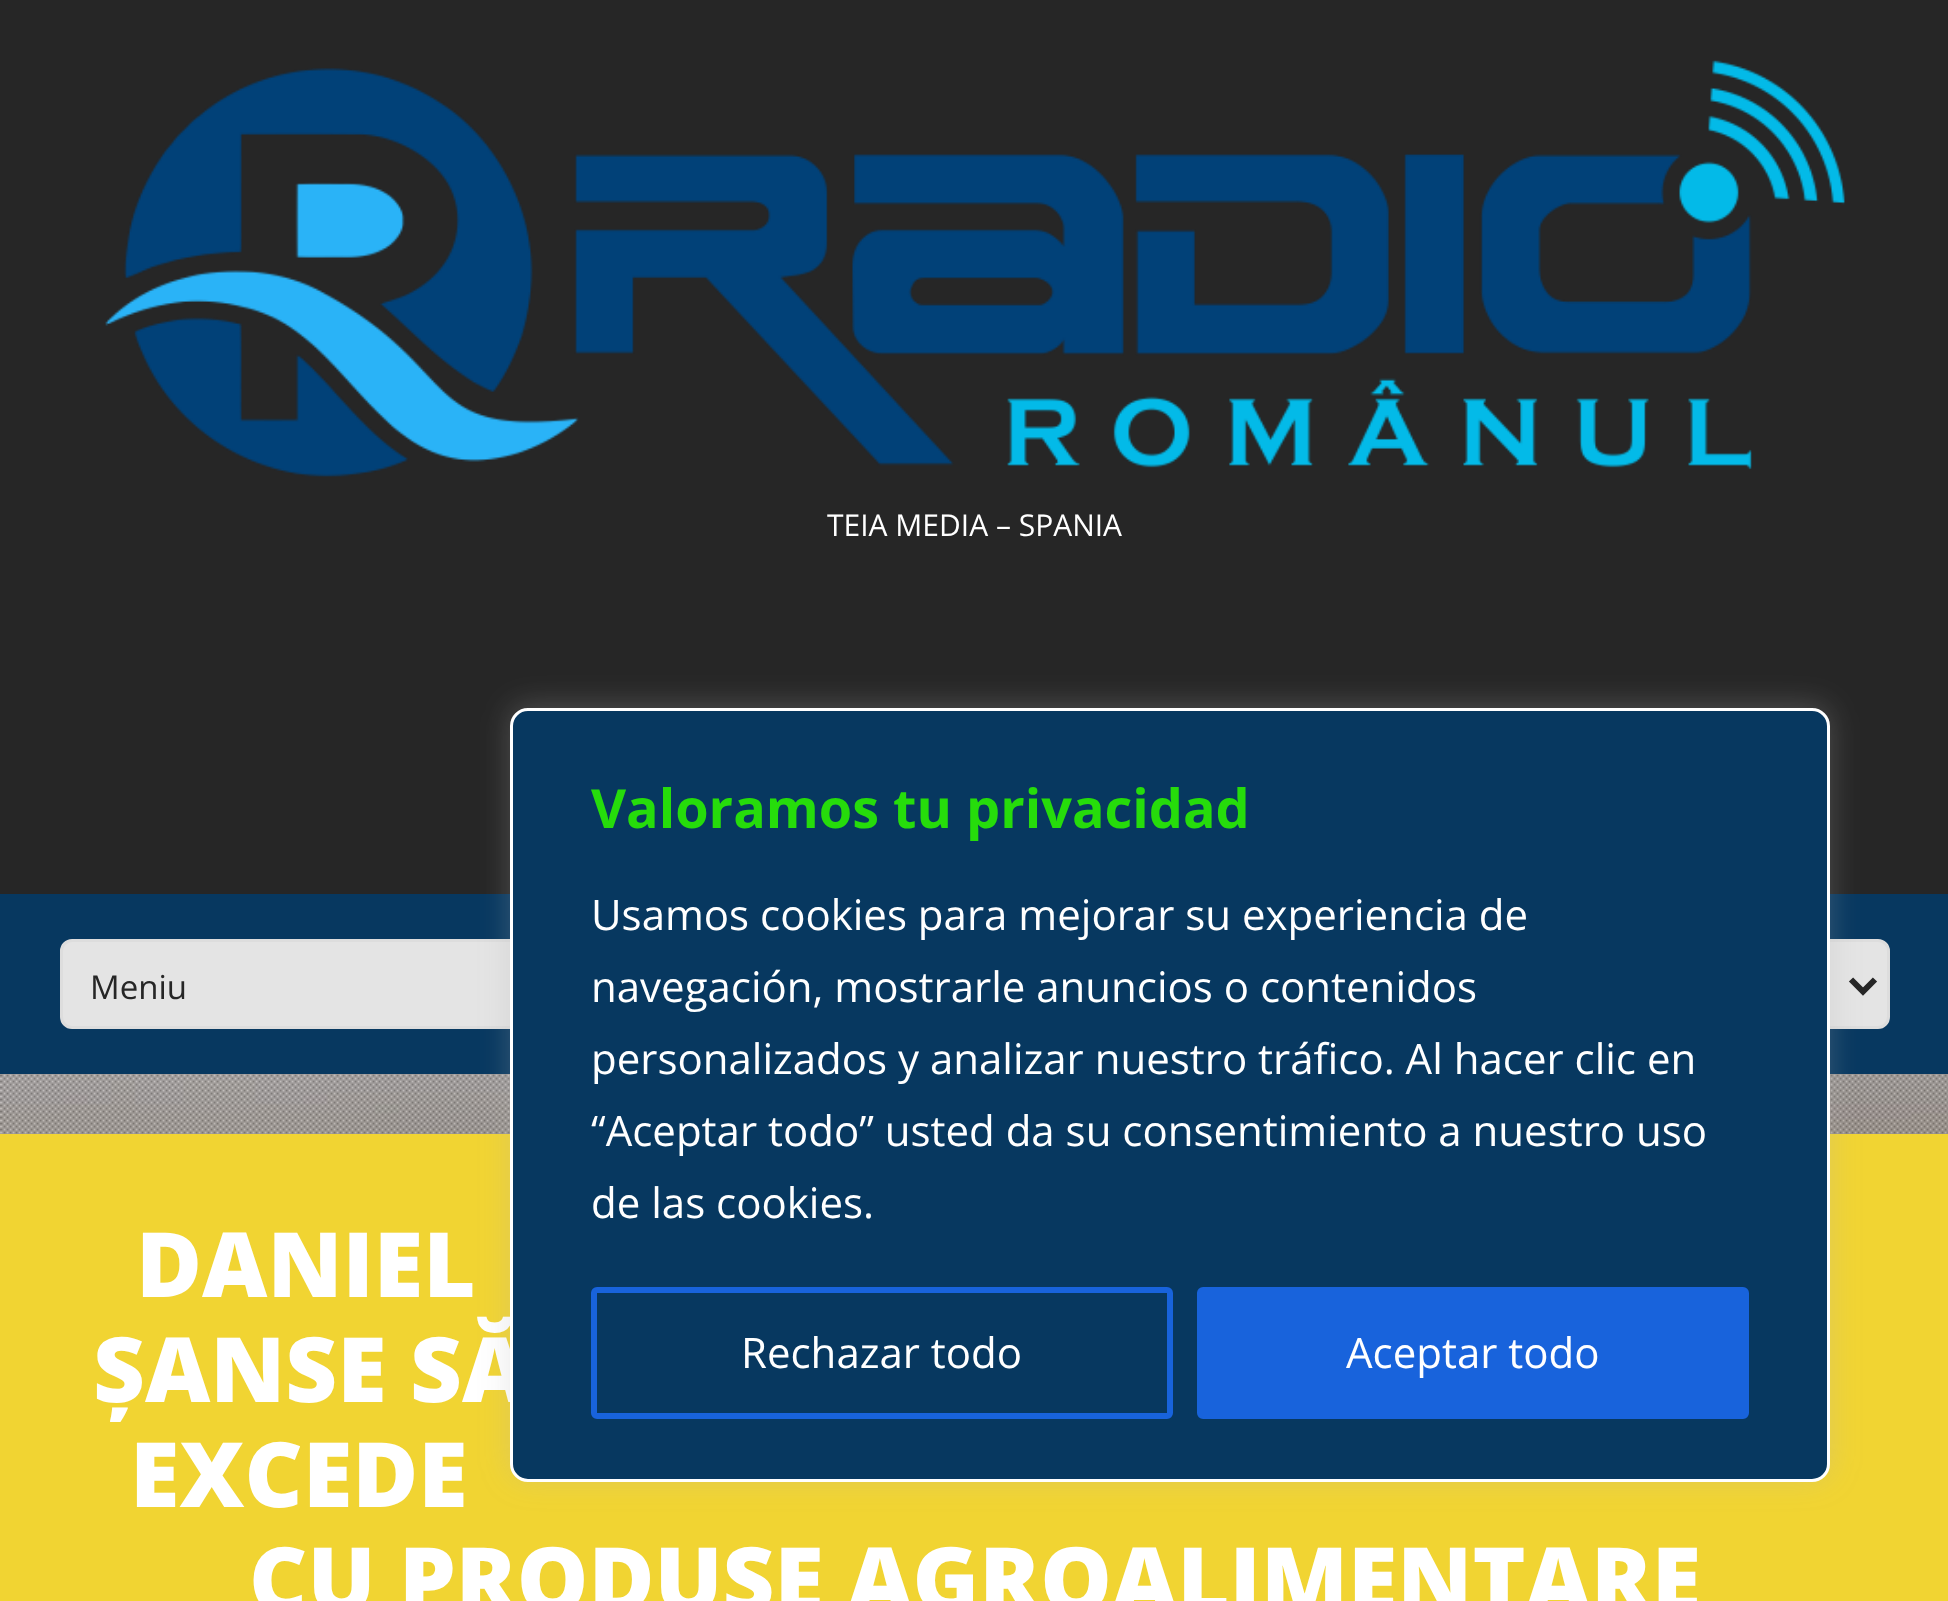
<?xml version="1.0" encoding="UTF-8"?>
<svg xmlns="http://www.w3.org/2000/svg" width="1948" height="1601">
    <defs>
        <filter id="blur1" x="-50%" y="-200%" width="200%" height="500%"><feGaussianBlur stdDeviation="15"/></filter>
    </defs>
    <rect width="100%" height="100%" fill="#FFFFFF"/>
    <image x="0" y="1074" width="1948" height="60" href="img_01.png"/>
    <rect x="0" y="0" width="1948" height="894" fill="#262626"/>
    <image x="105" y="60" width="1740" height="417" href="img_02.png"/>
    <text x="827" y="536" font-family="Open Sans" font-size="30" fill="#FFFFFF">TEIA MEDIA – SPANIA</text>
    <rect x="0" y="894" width="1948" height="180" fill="#073860"/>
    <rect x="61.5" y="940.5" width="1827" height="87" rx="10.5" fill="#E4E4E4" stroke="#DDDDDD" stroke-width="3"/>
    <path d="M 1851 979.5 L 1863 991.5 L 1875 979.5" fill="none" stroke="#262626" stroke-width="6"/>
    <text x="90" y="999" font-family="Open Sans" font-size="33" fill="#262626">Meniu</text>
    <rect x="0" y="1134" width="1948" height="467" fill="#F1D432"/>
    <text x="136" y="1297" font-family="Open Sans" font-size="90" font-weight="800" fill="#FFFFFF">DANIEL</text>
    <text x="93" y="1402" font-family="Open Sans" font-size="90" font-weight="800" fill="#FFFFFF">ȘANSE SĂ</text>
    <text x="130" y="1507" font-family="Open Sans" font-size="90" font-weight="800" fill="#FFFFFF">EXCEDE</text>
    <text x="249" y="1612" font-family="Open Sans" font-size="90" font-weight="800" fill="#FFFFFF">CU PRODUSE AGROALIMENTARE</text>
    <rect x="510" y="705" width="1320" height="774" rx="18" fill="#ACABAB" fill-opacity="0.3" filter="url(#blur1)"/>
    <rect x="511.5" y="709.5" width="1317" height="771" rx="16.5" fill="#073860" stroke="#FFFFFF" stroke-width="3"/>
    <text x="591" y="828" font-family="Open Sans" font-size="54" font-weight="700" fill="#26DC0B">Valoramos tu privacidad</text>
    <text font-family="Open Sans" font-size="42" fill="#FFFFFF">
        <tspan x="591" y="930">Usamos cookies para mejorar su experiencia de</tspan>
        <tspan x="591" y="1002">navegación, mostrarle anuncios o contenidos</tspan>
        <tspan x="591" y="1074">personalizados y analizar nuestro tráfico. Al hacer clic en</tspan>
        <tspan x="591" y="1146">“Aceptar todo” usted da su consentimiento a nuestro uso</tspan>
        <tspan x="591" y="1218">de las cookies.</tspan>
    </text>
    <rect x="594" y="1290" width="576" height="126" rx="3" fill="none" stroke="#1863DC" stroke-width="6"/>
    <text x="741" y="1368" font-family="Open Sans" font-size="42" fill="#FFFFFF">Rechazar todo</text>
    <rect x="1200" y="1290" width="546" height="126" rx="3" fill="#1863DC" stroke="#1863DC" stroke-width="6"/>
    <text x="1346" y="1368" font-family="Open Sans" font-size="42" fill="#FFFFFF">Aceptar todo</text>
</svg>
